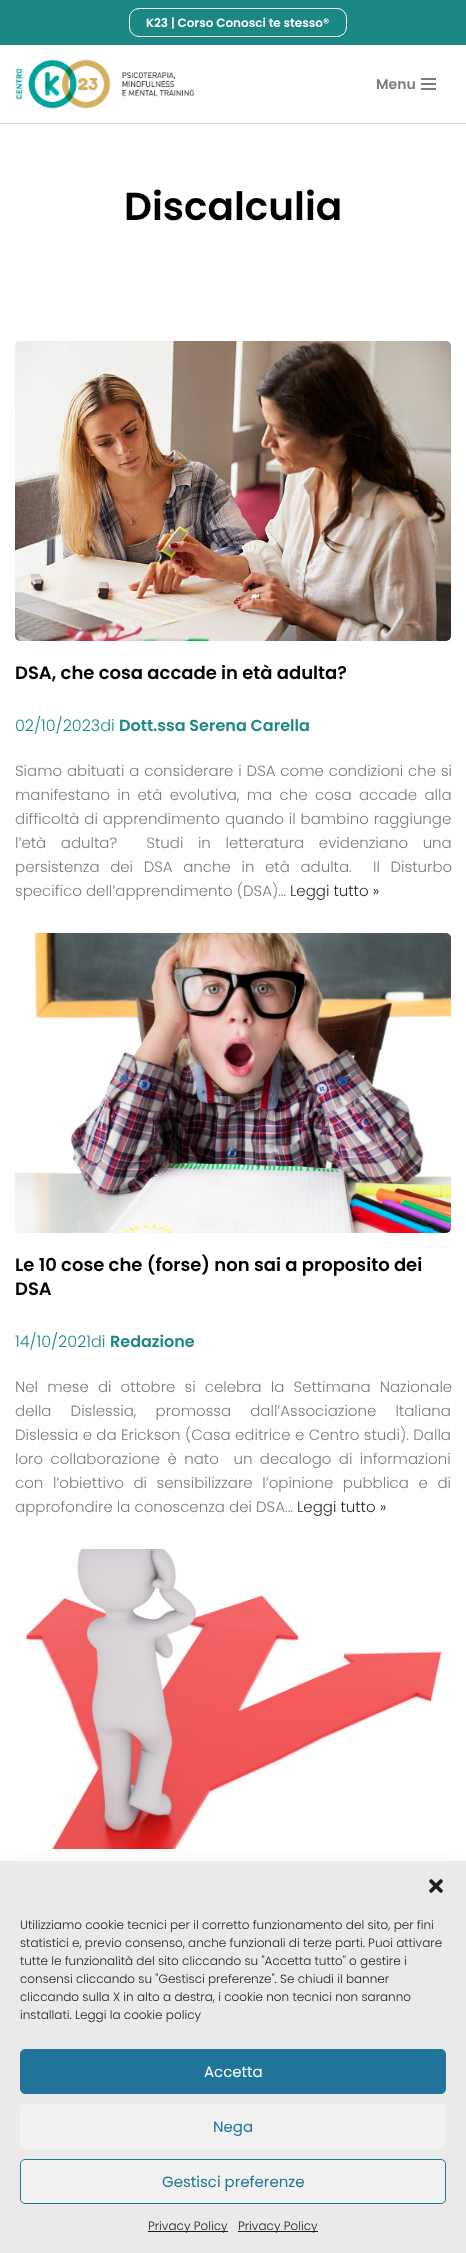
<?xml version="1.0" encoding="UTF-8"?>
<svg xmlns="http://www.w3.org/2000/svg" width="466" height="2253">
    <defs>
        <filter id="blur1" x="-50%" y="-200%" width="200%" height="500%"><feGaussianBlur stdDeviation="10"/></filter>
    </defs>
    <rect width="100%" height="100%" fill="#FFFFFF"/>
    <rect x="0" y="0" width="466" height="45" fill="#1B8885"/>
    <rect x="129.5" y="8.5" width="217" height="28" rx="9.5" fill="none" stroke="#FFFFFF"/>
    <text x="146" y="27" font-family="Poppins" font-size="12" font-weight="600" fill="#FFFFFF">K23 | Corso Conosci te stesso®</text>
    <rect x="0" y="123" width="466" height="1" fill="#DDDDDD"/>
    <image x="15" y="59" width="180" height="50" href="img_01.png"/>
    <text x="376" y="89" font-family="Poppins" font-size="14" font-weight="600" fill="#7C7C7C">Menu</text>
    <rect x="421" y="78" width="15" height="2" fill="#7C7C7C"/>
    <rect x="421" y="83" width="15" height="2" fill="#7C7C7C"/>
    <rect x="421" y="88" width="15" height="2" fill="#7C7C7C"/>
    <text x="124" y="220" font-family="Poppins" font-size="39" font-weight="600" fill="#000000">Discalculia</text>
    <image x="15" y="341" width="436" height="300" href="img_02.png"/>
    <text x="15" y="679" font-family="Poppins" font-size="18" font-weight="600" fill="#000000">DSA, che cosa accade in età adulta?</text>
    <text x="15" y="731" font-family="Poppins" font-size="16" font-weight="300" fill="#1B8885">02/10/2023di</text>
    <text x="119" y="731" font-family="Poppins" font-size="16" font-weight="600" fill="#1B8885">Dott.ssa Serena Carella</text>
    <text font-family="Poppins" font-size="15" font-weight="300" fill="#7C7C7C" xml:space="preserve"><tspan x="15" y="776" word-spacing="0.75">Siamo abituati a considerare i DSA come condizioni che si</tspan><tspan x="15" y="800" word-spacing="3.25">manifestano in età evolutiva, ma che cosa accade alla</tspan><tspan x="15" y="824" word-spacing="0.75">difficoltà di apprendimento quando il bambino raggiunge</tspan><tspan x="15" y="848" word-spacing="10.5">l’età adulta?  Studi in letteratura evidenziano una</tspan><tspan x="15" y="872" word-spacing="6.5">persistenza dei DSA anche in età adulta.  Il Disturbo</tspan><tspan x="15" y="896">specifico dell’apprendimento (DSA)…</tspan></text>
    <text x="290" y="896" font-family="Poppins" font-size="15" font-weight="300" fill="#2B2B2B">Leggi tutto »</text>
    <image x="15" y="933" width="436" height="300" href="img_03.png"/>
    <text font-family="Poppins" font-size="18" font-weight="600" fill="#000000">
        <tspan x="15" y="1271">Le 10 cose che (forse) non sai a proposito dei</tspan>
        <tspan x="15" y="1295">DSA</tspan>
    </text>
    <text x="15" y="1347" font-family="Poppins" font-size="16" font-weight="300" fill="#1B8885">14/10/2021di</text>
    <text x="110" y="1347" font-family="Poppins" font-size="16" font-weight="600" fill="#1B8885">Redazione</text>
    <text font-family="Poppins" font-size="15" font-weight="300" fill="#7C7C7C" xml:space="preserve"><tspan x="15" y="1392" word-spacing="5">Nel mese di ottobre si celebra la Settimana Nazionale</tspan><tspan x="15" y="1416" word-spacing="15">della Dislessia, promossa dall’Associazione Italiana</tspan><tspan x="15" y="1440" word-spacing="0.25">Dislessia e da Erickson (Casa editrice e Centro studi). Dalla</tspan><tspan x="15" y="1464" word-spacing="3.25">loro collaborazione è nato  un decalogo di informazioni</tspan><tspan x="15" y="1488" word-spacing="5.5">con l’obiettivo di sensibilizzare l’opinione pubblica e di</tspan><tspan x="15" y="1512">approfondire la conoscenza dei DSA…</tspan></text>
    <text x="297" y="1512" font-family="Poppins" font-size="15" font-weight="300" fill="#2B2B2B">Leggi tutto »</text>
    <image x="26" y="1549" width="416" height="300" href="img_04.png"/>
    <rect x="0" y="1871" width="466" height="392" fill="#000000" fill-opacity="0.19" filter="url(#blur1)"/>
    <rect x="0" y="1861" width="466" height="392" fill="#ECE9E9"/>
    <image x="429" y="1879" width="14" height="14" href="img_05.png"/>
    <text font-family="Poppins" font-size="12" font-weight="300" fill="#191E23">
        <tspan x="20" y="1929">Utilizziamo cookie tecnici per il corretto funzionamento del sito, per fini</tspan>
        <tspan x="20" y="1947">statistici e, previo consenso, anche funzionali di terze parti. Puoi attivare</tspan>
        <tspan x="20" y="1965">tutte le funzionalità del sito cliccando su "Accetta tutto" o gestire i</tspan>
        <tspan x="20" y="1983">consensi cliccando su "Gestisci preferenze". Se chiudi il banner</tspan>
        <tspan x="20" y="2001">cliccando sulla X in alto a destra, i cookie non tecnici non saranno</tspan>
        <tspan x="20" y="2019">installati. Leggi la cookie policy</tspan>
    </text>
    <rect x="20.5" y="2049.5" width="425" height="44" rx="4.5" fill="#21759B" stroke="#21759B"/>
    <text x="204" y="2077" font-family="Poppins" font-size="15" fill="#FFFFFF">Accetta</text>
    <rect x="20" y="2104" width="426" height="45" rx="5" fill="#F1F1F1"/>
    <text x="213" y="2132" font-family="Poppins" font-size="15" fill="#21759B">Nega</text>
    <rect x="20.5" y="2159.5" width="425" height="44" rx="4.5" fill="#F1F1F1" stroke="#21759B"/>
    <text x="162" y="2187" font-family="Poppins" font-size="15" fill="#21759B">Gestisci preferenze</text>
    <rect x="148" y="2231" width="80" height="1" fill="#191E23"/>
    <text x="148" y="2230" font-family="Poppins" font-size="12" font-weight="300" fill="#191E23">Privacy Policy</text>
    <rect x="238" y="2231" width="80" height="1" fill="#191E23"/>
    <text x="238" y="2230" font-family="Poppins" font-size="12" font-weight="300" fill="#191E23">Privacy Policy</text>
</svg>
